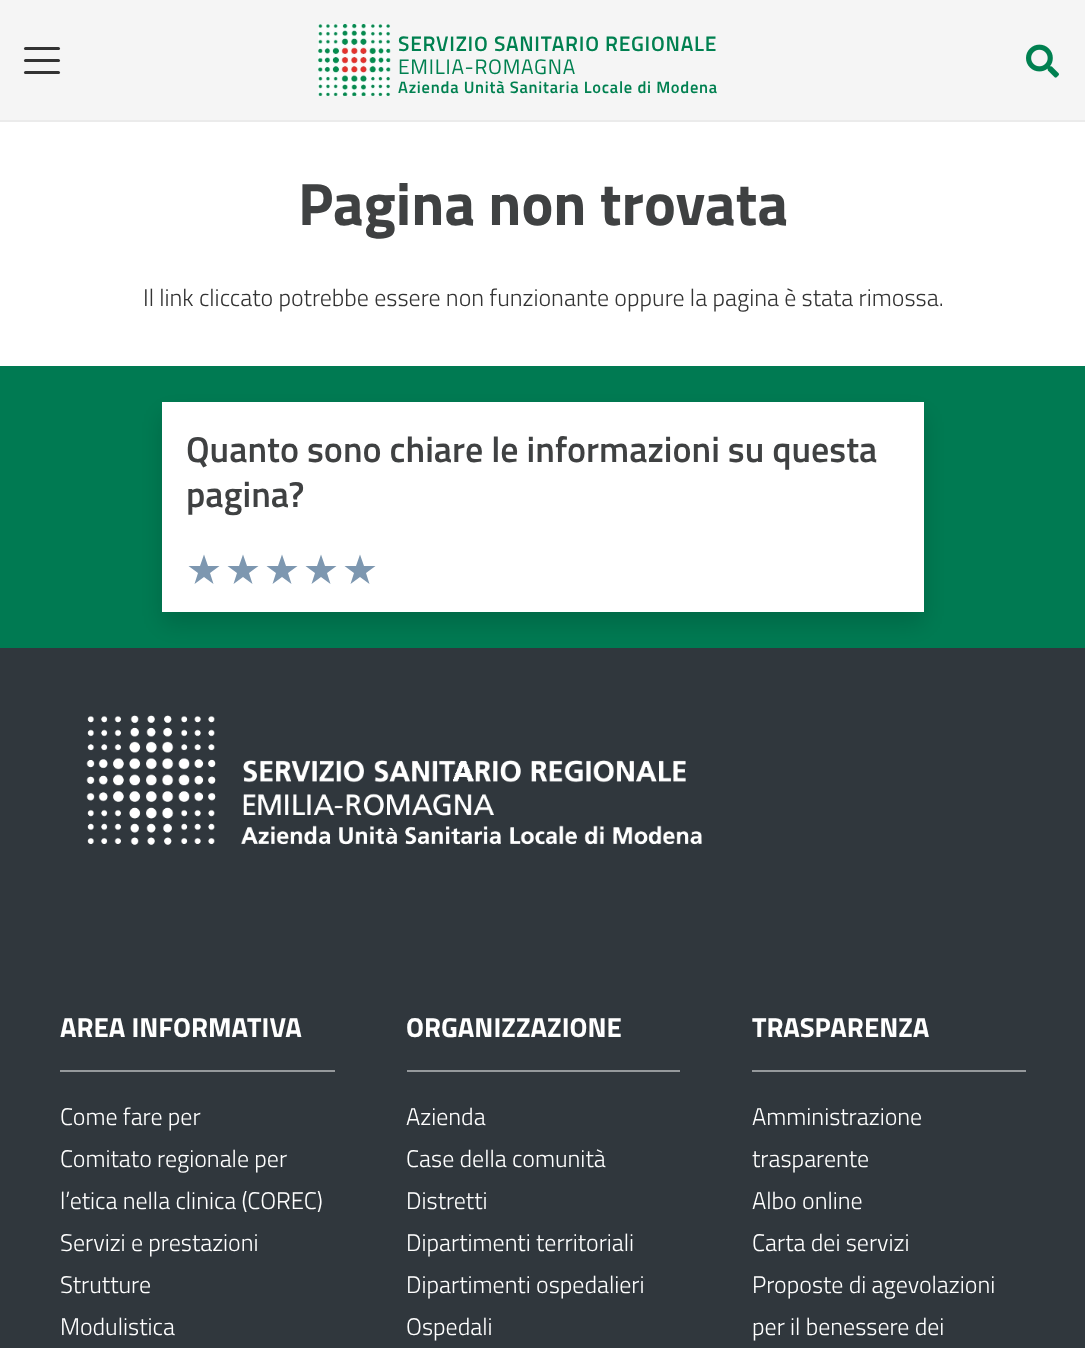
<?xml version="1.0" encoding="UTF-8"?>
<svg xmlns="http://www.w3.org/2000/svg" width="1085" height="1348">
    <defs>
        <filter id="blur1" x="-50%" y="-200%" width="200%" height="500%"><feGaussianBlur stdDeviation="12"/></filter>
    </defs>
    <rect width="100%" height="100%" fill="#FFFFFF"/>
    <rect x="0" y="120" width="1085" height="2" fill="#EBEBEB"/>
    <rect x="0" y="0" width="1085" height="120" fill="#F5F5F5"/>
    <rect x="24" y="59" width="36" height="3" rx="1.5" fill="#333333"/>
    <rect x="24" y="47" width="36" height="3" rx="1.5" fill="#333333"/>
    <rect x="24" y="71" width="36" height="3" rx="1.5" fill="#333333"/>
    <image x="318" y="24" width="73" height="72" href="img_01.png"/>
    <text x="398" y="51" font-family="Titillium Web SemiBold" font-size="21" font-weight="600" letter-spacing="0.75" fill="#008050">SERVIZIO SANITARIO REGIONALE</text>
    <text x="398" y="74" font-family="Titillium Web" font-size="21" letter-spacing="0.75" fill="#008050">EMILIA-ROMAGNA</text>
    <text x="398" y="93" font-family="Titillium Web SemiBold" font-size="16.5" font-weight="600" letter-spacing="0.75" fill="#008050">Azienda Unità Sanitaria Locale di Modena</text>
    <image x="1026" y="44" width="33" height="34" href="img_02.png"/>
    <text x="298" y="225" font-family="Titillium Web" font-size="60" font-weight="700" fill="#3F4142">Pagina non trovata</text>
    <text x="143" y="306" font-family="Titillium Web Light" font-size="24" font-weight="300" fill="#333333">Il link cliccato potrebbe essere non funzionante oppure la pagina è stata rimossa.</text>
    <rect x="0" y="366" width="1085" height="282" fill="#007A52"/>
    <rect x="162" y="414" width="762" height="210" fill="#000000" fill-opacity="0.15" filter="url(#blur1)"/>
    <rect x="162" y="402" width="762" height="210" fill="#FFFFFF"/>
    <text font-family="Titillium Web SemiBold" font-size="36" font-weight="600" fill="#3F4142">
        <tspan x="186" y="462">Quanto sono chiare le informazioni su questa</tspan>
        <tspan x="186" y="507">pagina?</tspan>
    </text>
    <path d="M 204 554.5 L 200 566 H 188.5 L 198 573 L 194.5 584 L 204 577 L 213.5 584 L 210 573 L 219.5 566 H 208 Z" fill="#7D97B0"/>
    <path d="M 243 554.5 L 239 566 H 227.5 L 237 573 L 233.5 584 L 243 577 L 252.5 584 L 249 573 L 258.5 566 H 247 Z" fill="#7D97B0"/>
    <path d="M 282 554.5 L 278 566 H 266.5 L 276 573 L 272.5 584 L 282 577 L 291.5 584 L 288 573 L 297.5 566 H 286 Z" fill="#7D97B0"/>
    <path d="M 321 554.5 L 317 566 H 305.5 L 315 573 L 311.5 584 L 321 577 L 330.5 584 L 327 573 L 336.5 566 H 325 Z" fill="#7D97B0"/>
    <path d="M 360 554.5 L 356 566 H 344.5 L 354 573 L 350.5 584 L 360 577 L 369.5 584 L 366 573 L 375.5 566 H 364 Z" fill="#7D97B0"/>
    <rect x="0" y="648" width="1085" height="700" fill="#30373D"/>
    <image x="86" y="715" width="616" height="130" href="img_03.png"/>
    <rect x="60" y="1070" width="275" height="2" fill="#95999C"/>
    <text x="60" y="1037" font-family="Titillium Web" font-size="27.5" font-weight="700" fill="#FFFFFF">AREA INFORMATIVA</text>
    <text font-family="Titillium Web Light" font-size="24" font-weight="300" fill="#FFFFFF">
        <tspan x="60" y="1125">Come fare per</tspan>
        <tspan x="60" y="1167">Comitato regionale per</tspan>
        <tspan x="60" y="1209">l’etica nella clinica (COREC)</tspan>
        <tspan x="60" y="1251">Servizi e prestazioni</tspan>
        <tspan x="60" y="1293">Strutture</tspan>
        <tspan x="60" y="1335">Modulistica</tspan>
    </text>
    <rect x="407" y="1070" width="273" height="2" fill="#95999C"/>
    <text x="406" y="1037" font-family="Titillium Web" font-size="27.5" font-weight="700" fill="#FFFFFF">ORGANIZZAZIONE</text>
    <text font-family="Titillium Web Light" font-size="24" font-weight="300" fill="#FFFFFF">
        <tspan x="406" y="1125">Azienda</tspan>
        <tspan x="406" y="1167">Case della comunità</tspan>
        <tspan x="406" y="1209">Distretti</tspan>
        <tspan x="406" y="1251">Dipartimenti territoriali</tspan>
        <tspan x="406" y="1293">Dipartimenti ospedalieri</tspan>
        <tspan x="406" y="1335">Ospedali</tspan>
    </text>
    <rect x="752" y="1070" width="274" height="2" fill="#95999C"/>
    <text x="752" y="1037" font-family="Titillium Web" font-size="27.5" font-weight="700" fill="#FFFFFF">TRASPARENZA</text>
    <text font-family="Titillium Web Light" font-size="24" font-weight="300" fill="#FFFFFF">
        <tspan x="752" y="1125">Amministrazione</tspan>
        <tspan x="752" y="1167">trasparente</tspan>
        <tspan x="752" y="1209">Albo online</tspan>
        <tspan x="752" y="1251">Carta dei servizi</tspan>
        <tspan x="752" y="1293">Proposte di agevolazioni</tspan>
        <tspan x="752" y="1335">per il benessere dei</tspan>
    </text>
</svg>
